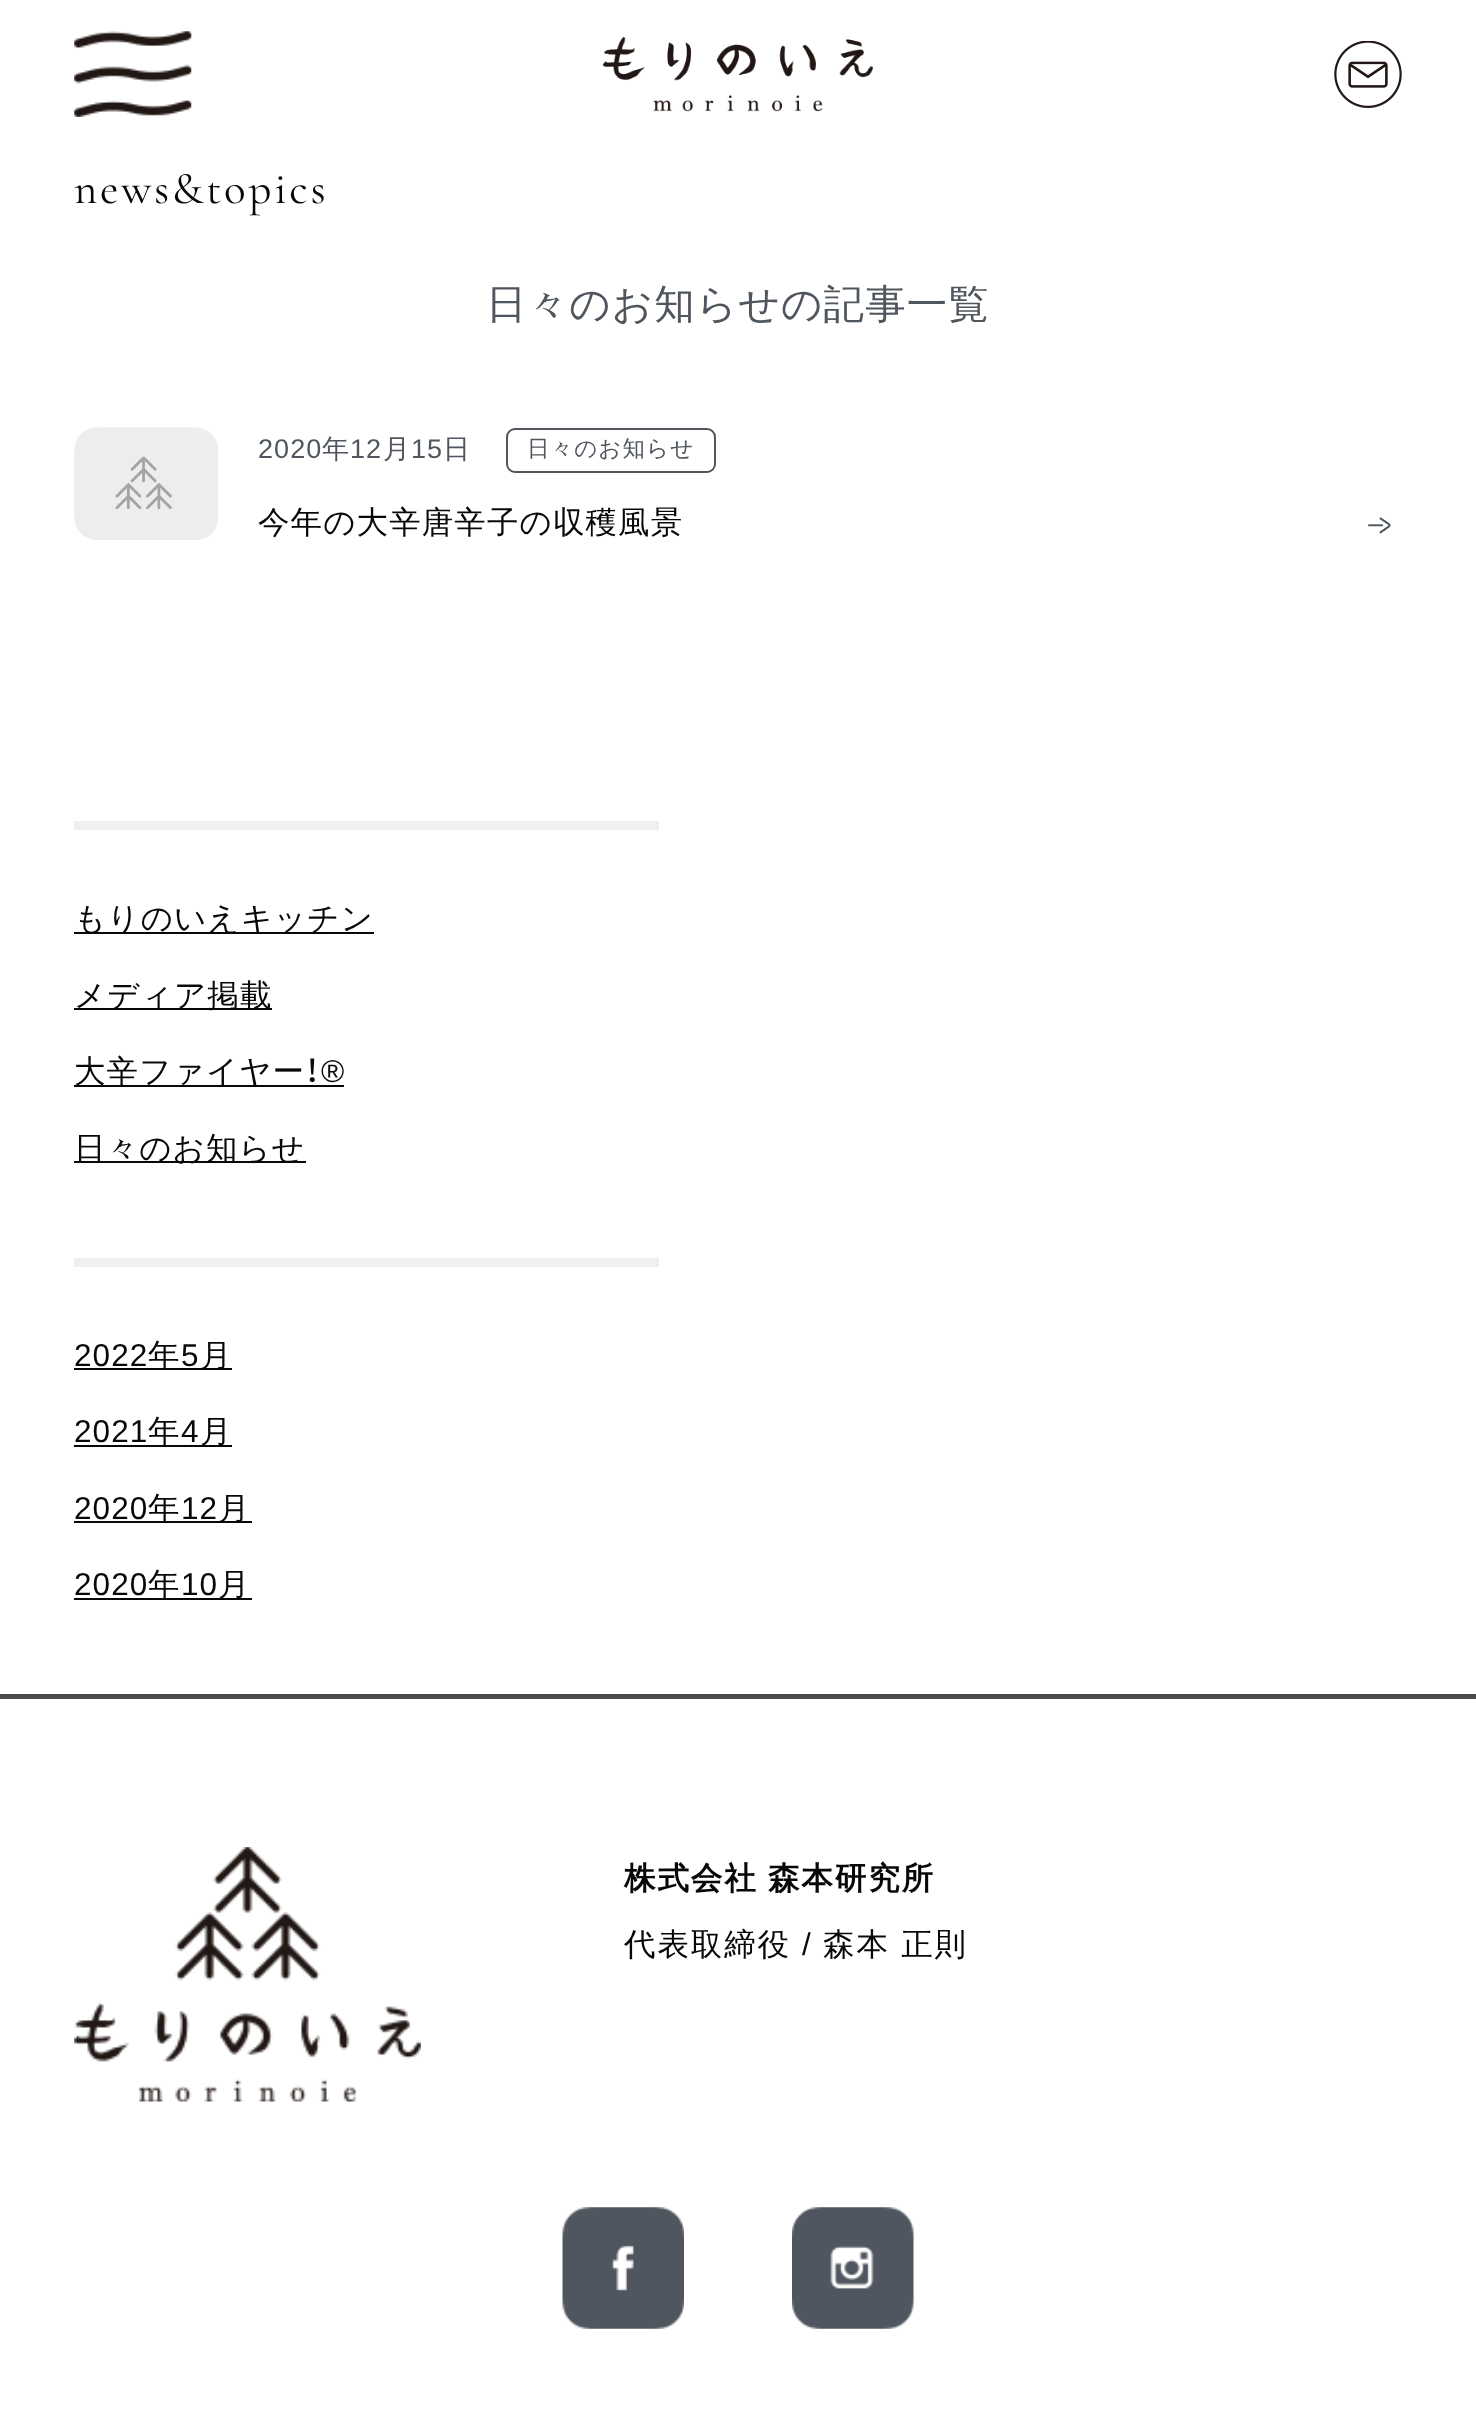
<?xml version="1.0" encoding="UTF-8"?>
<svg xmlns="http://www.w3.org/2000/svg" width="1476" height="2433">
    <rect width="100%" height="100%" fill="#FFFFFF"/>
    <image x="74" y="31" width="118" height="86" href="img_01.png"/>
    <image x="603" y="36" width="270" height="76" href="img_02.png"/>
    <image x="1334" y="41" width="68" height="67" href="img_03.png"/>
    <text x="74" y="203" font-family="Cormorant Garamond" font-size="45" font-weight="300" letter-spacing="2.75" fill="#080809">news&amp;topics</text>
    <text x="486" y="318" font-family="WenQuanYi Zen Hei" font-size="40.5" font-weight="500" letter-spacing="1.1" fill="#50565E">日々のお知らせの記事一覧</text>
    <image x="74" y="427" width="145" height="113" href="img_04.png"/>
    <text x="258" y="458" font-family="Liberation Sans" font-size="27" letter-spacing="1.1" fill="#50565E">2020</text>
    <text x="322" y="458" font-family="WenQuanYi Zen Hei" font-size="27" font-weight="500" letter-spacing="1.1" fill="#50565E">年</text>
    <text x="350" y="458" font-family="Liberation Sans" font-size="27" letter-spacing="1.1" fill="#50565E">12</text>
    <text x="383" y="458" font-family="WenQuanYi Zen Hei" font-size="27" font-weight="500" letter-spacing="1.1" fill="#50565E">月</text>
    <text x="411" y="458" font-family="Liberation Sans" font-size="27" letter-spacing="1.1" fill="#50565E">15</text>
    <text x="443" y="458" font-family="WenQuanYi Zen Hei" font-size="27" font-weight="500" letter-spacing="1.1" fill="#50565E">日</text>
    <rect x="507" y="429" width="208" height="43" rx="8" fill="none" stroke="#50565E" stroke-width="2"/>
    <text x="527" y="456" font-family="WenQuanYi Zen Hei" font-size="22.5" font-weight="500" letter-spacing="1.1" fill="#50565E">日々のお知らせ</text>
    <text x="258" y="533" font-family="WenQuanYi Zen Hei" font-size="31.5" font-weight="500" letter-spacing="1.1" fill="#080809">今年の大辛唐辛子の収穫風景</text>
    <image x="1368" y="517" width="23" height="17" href="img_05.png"/>
    <rect x="74" y="821" width="585" height="9" fill="#EFEFEF"/>
    <rect x="74" y="932" width="300" height="2" fill="#080809"/>
    <text x="74" y="929" font-family="WenQuanYi Zen Hei" font-size="31.5" font-weight="500" letter-spacing="1.1" fill="#080809">もりのいえキッチン</text>
    <rect x="74" y="1008" width="198" height="2" fill="#080809"/>
    <text x="74" y="1006" font-family="WenQuanYi Zen Hei" font-size="31.5" font-weight="500" letter-spacing="1.1" fill="#080809">メディア掲載</text>
    <rect x="74" y="1085" width="270" height="2" fill="#080809"/>
    <text x="74" y="1082" font-family="WenQuanYi Zen Hei" font-size="31.5" font-weight="500" letter-spacing="1.1" fill="#080809">大辛ファイヤー</text>
    <text x="305" y="1082" font-family="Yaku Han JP" font-size="31.5" letter-spacing="1.1" fill="#080809">！</text>
    <text x="321" y="1082" font-family="Liberation Sans" font-size="31.5" letter-spacing="1.1" fill="#080809">®︎</text>
    <rect x="74" y="1161" width="232" height="2" fill="#080809"/>
    <text x="74" y="1159" font-family="WenQuanYi Zen Hei" font-size="31.5" font-weight="500" letter-spacing="1.1" fill="#080809">日々のお知らせ</text>
    <rect x="74" y="1258" width="585" height="9" fill="#EFEFEF"/>
    <text x="74" y="1366" font-family="Liberation Sans" font-size="31.5" letter-spacing="1.1" fill="#080809">2022</text>
    <rect x="74" y="1368" width="158" height="2" fill="#080809"/>
    <text x="148" y="1366" font-family="WenQuanYi Zen Hei" font-size="31.5" font-weight="500" letter-spacing="1.1" fill="#080809">年</text>
    <text x="181" y="1366" font-family="Liberation Sans" font-size="31.5" letter-spacing="1.1" fill="#080809">5</text>
    <text x="200" y="1366" font-family="WenQuanYi Zen Hei" font-size="31.5" font-weight="500" letter-spacing="1.1" fill="#080809">月</text>
    <text x="74" y="1442" font-family="Liberation Sans" font-size="31.5" letter-spacing="1.1" fill="#080809">2021</text>
    <rect x="74" y="1445" width="158" height="2" fill="#080809"/>
    <text x="148" y="1442" font-family="WenQuanYi Zen Hei" font-size="31.5" font-weight="500" letter-spacing="1.1" fill="#080809">年</text>
    <text x="181" y="1442" font-family="Liberation Sans" font-size="31.5" letter-spacing="1.1" fill="#080809">4</text>
    <text x="200" y="1442" font-family="WenQuanYi Zen Hei" font-size="31.5" font-weight="500" letter-spacing="1.1" fill="#080809">月</text>
    <text x="74" y="1519" font-family="Liberation Sans" font-size="31.5" letter-spacing="1.1" fill="#080809">2020</text>
    <rect x="74" y="1521" width="178" height="2" fill="#080809"/>
    <text x="148" y="1519" font-family="WenQuanYi Zen Hei" font-size="31.5" font-weight="500" letter-spacing="1.1" fill="#080809">年</text>
    <text x="181" y="1519" font-family="Liberation Sans" font-size="31.5" letter-spacing="1.1" fill="#080809">12</text>
    <text x="218" y="1519" font-family="WenQuanYi Zen Hei" font-size="31.5" font-weight="500" letter-spacing="1.1" fill="#080809">月</text>
    <text x="74" y="1595" font-family="Liberation Sans" font-size="31.5" letter-spacing="1.1" fill="#080809">2020</text>
    <rect x="74" y="1598" width="178" height="2" fill="#080809"/>
    <text x="148" y="1595" font-family="WenQuanYi Zen Hei" font-size="31.5" font-weight="500" letter-spacing="1.1" fill="#080809">年</text>
    <text x="181" y="1595" font-family="Liberation Sans" font-size="31.5" letter-spacing="1.1" fill="#080809">10</text>
    <text x="218" y="1595" font-family="WenQuanYi Zen Hei" font-size="31.5" font-weight="500" letter-spacing="1.1" fill="#080809">月</text>
    <rect x="0" y="1694" width="1476" height="5" fill="#4A4A4A"/>
    <image x="74" y="1847" width="347" height="255" href="img_06.png"/>
    <text x="624" y="1889" word-spacing="-1" font-family="WenQuanYi Zen Hei" font-size="31.5" font-weight="700" letter-spacing="1.9" fill="#080809">株式会社 森本研究所</text>
    <text x="624" y="1955" font-family="WenQuanYi Zen Hei" font-size="31.5" font-weight="500" letter-spacing="1.9" fill="#080809">代表取締役</text>
    <text x="802" y="1955" font-family="Liberation Sans" font-size="31.5" letter-spacing="1.9" fill="#080809">/</text>
    <text x="823" y="1955" font-family="WenQuanYi Zen Hei" font-size="31.5" font-weight="500" letter-spacing="1.9" fill="#080809">森本 正則</text>
    <image x="562" y="2207" width="122" height="122" href="img_07.png"/>
    <image x="792" y="2207" width="122" height="122" href="img_08.png"/>
</svg>
